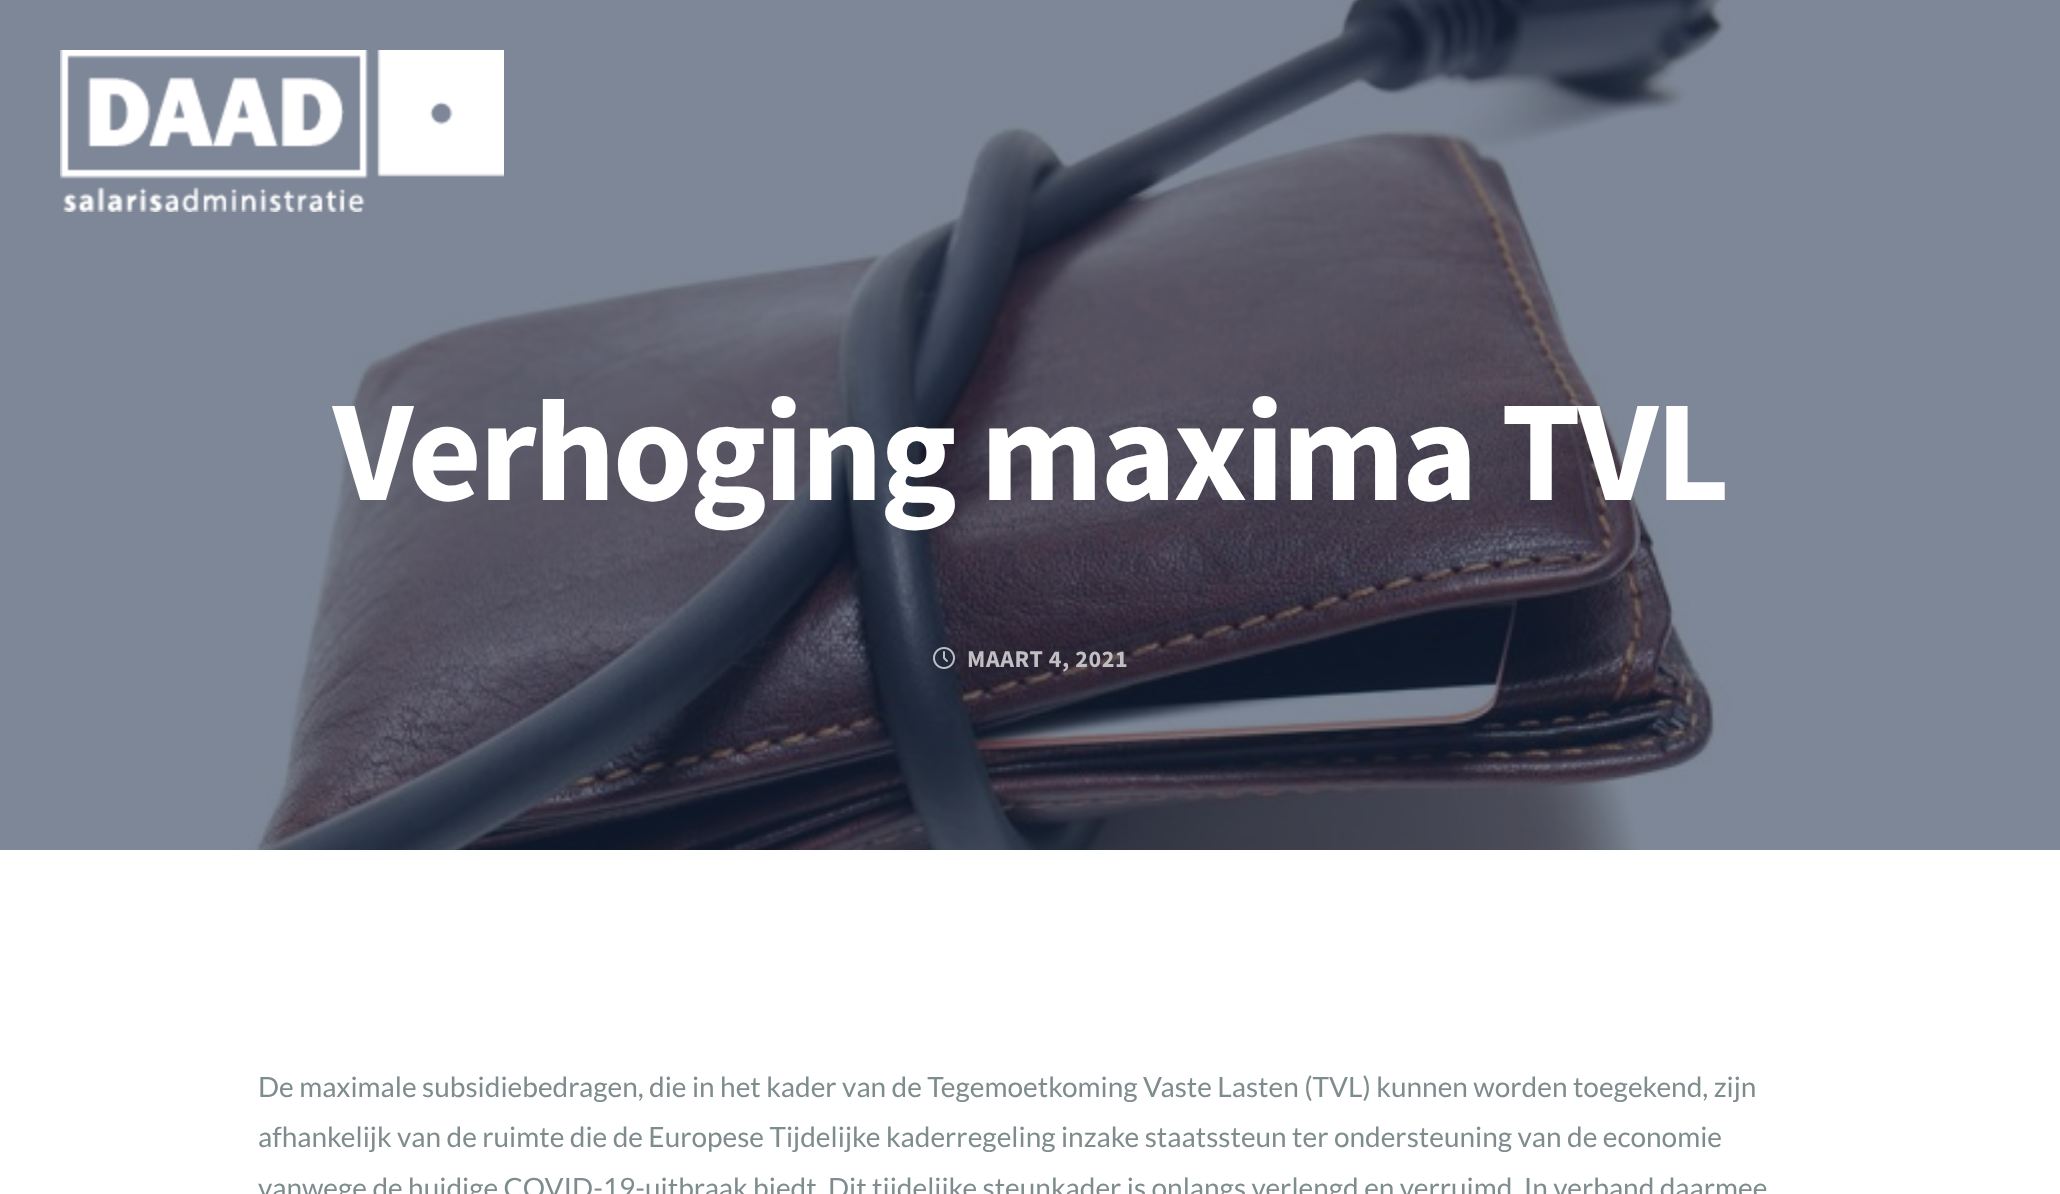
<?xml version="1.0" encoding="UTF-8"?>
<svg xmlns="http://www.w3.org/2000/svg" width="2060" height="1194">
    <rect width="100%" height="100%" fill="#FFFFFF"/>
    <image x="0" y="0" width="2060" height="850" href="img_02.png"/>
    <image x="60" y="50" width="444" height="162" href="img_01.png"/>
    <text x="333" y="500" font-family="Source Sans Pro" font-size="144" font-weight="700" letter-spacing="-2.9" fill="#FFFFFF">Verhoging maxima TVL</text>
    <image x="933" y="647" width="22" height="22" href="img_03.png"/>
    <text x="967" y="667" font-family="Source Sans Pro" font-size="24" font-weight="700" letter-spacing="0.6" fill="#C1BFC3">MAART 4, 2021</text>
    <text font-family="Lato" font-size="28" fill="#7F8C8D">
        <tspan x="258" y="1097">De maximale subsidiebedragen, die in het kader van de Tegemoetkoming Vaste Lasten (TVL) kunnen worden toegekend, zijn</tspan>
        <tspan x="258" y="1147">afhankelijk van de ruimte die de Europese Tijdelijke kaderregeling inzake staatssteun ter ondersteuning van de economie</tspan>
        <tspan x="258" y="1198">vanwege de huidige COVID-19-uitbraak biedt. Dit tijdelijke steunkader is onlangs verlengd en verruimd. In verband daarmee</tspan>
    </text>
</svg>
